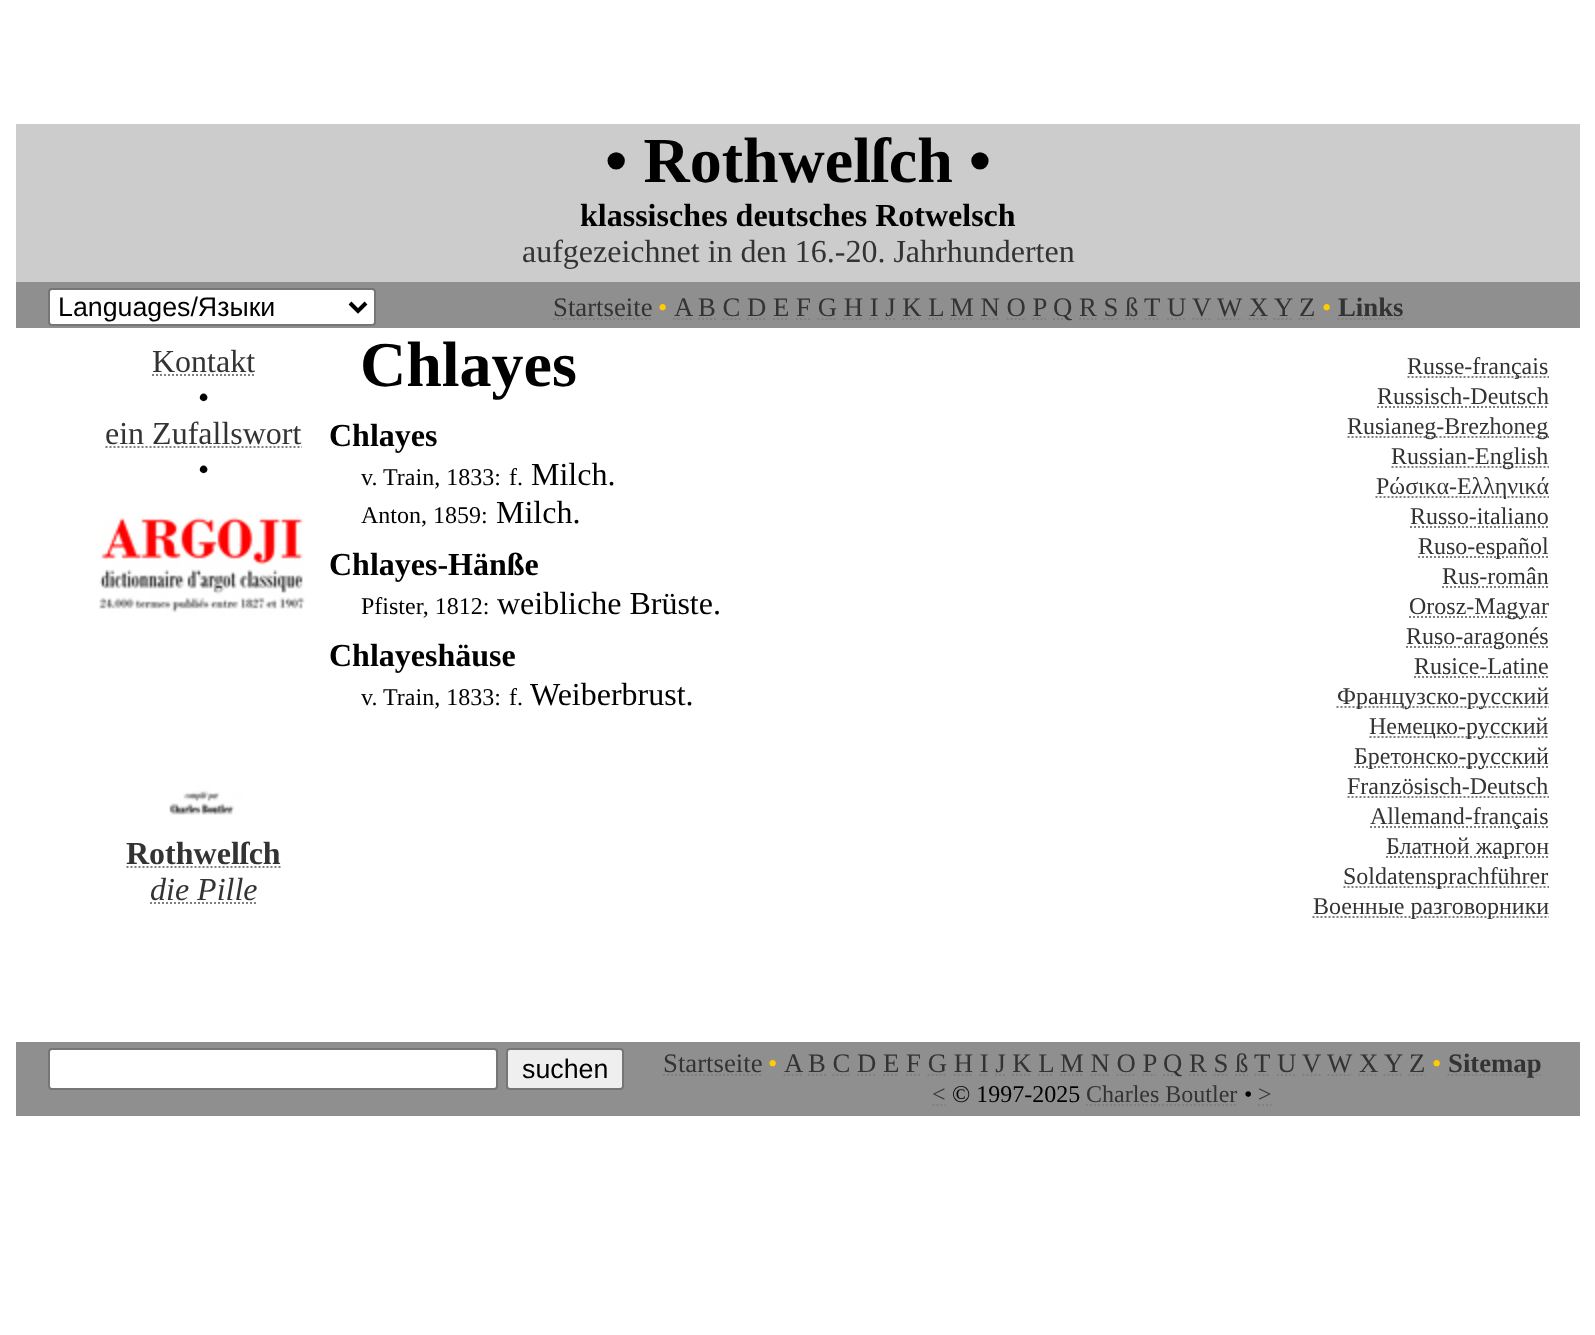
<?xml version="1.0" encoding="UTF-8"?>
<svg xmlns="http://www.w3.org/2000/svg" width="1595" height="1335">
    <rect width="100%" height="100%" fill="#FFFFFF"/>
    <rect x="16" y="124" width="1564" height="158" fill="#CCCCCC"/>
    <text x="605" y="182" font-family="Liberation Serif" font-size="64" font-weight="700" fill="#000000">• Rothwelſch •</text>
    <text x="580" y="226" font-family="Liberation Serif" font-size="32" font-weight="700" fill="#000000">klassisches deutsches Rotwelsch</text>
    <text x="522" y="262" font-family="Liberation Serif" font-size="32" fill="#333333">aufgezeichnet in den 16.-20. Jahrhunderten</text>
    <rect x="16" y="282" width="1564" height="46" fill="#8F8F8F"/>
    <rect x="49" y="289" width="326" height="36" rx="3" fill="#FFFFFF" stroke="#767676" stroke-width="2"/>
    <path d="M 350 303 L 358 311 L 366 303" fill="none" stroke="#000000" stroke-width="4"/>
    <text x="58" y="316" font-family="Liberation Sans" font-size="26.75" fill="#000000">Languages/Языки</text>
    <text x="553" y="316" font-family="Liberation Serif" font-size="26.75" fill="#333333">Startseite</text>
    <path d="M 553 319 H 652.5" fill="none" stroke="#808080" stroke-width="2" stroke-dasharray="2 2"/>
    <text x="658" y="316" font-family="Liberation Serif" font-size="26.75" fill="#FFCC00">•</text>
    <text x="674" y="316" font-family="Liberation Serif" font-size="26.75" fill="#333333">A</text>
    <path d="M 673.5 319 H 691.5" fill="none" stroke="#808080" stroke-width="2" stroke-dasharray="2 2"/>
    <text x="698" y="316" font-family="Liberation Serif" font-size="26.75" fill="#333333">B C D E F G H I J K L</text>
    <path d="M 698 319 H 716" fill="none" stroke="#808080" stroke-width="2" stroke-dasharray="2 2"/>
    <path d="M 722.5 319 H 740.5 M 747 319 H 766" fill="none" stroke="#808080" stroke-width="2" stroke-dasharray="2 2"/>
    <path d="M 773 319 H 789 M 796 319 H 811 M 817.5 319 H 837" fill="none" stroke="#808080" stroke-width="2" stroke-dasharray="2 2"/>
    <path d="M 843.5 319 H 862.5" fill="none" stroke="#808080" stroke-width="2" stroke-dasharray="2 2"/>
    <path d="M 869.5 319 H 871.5 M 873.5 319 H 875.5 M 877.5 319 H 878.5 M 885 319 H 887 M 889 319 H 891 M 893 319 H 895" fill="none" stroke="#808080" stroke-width="2"/>
    <path d="M 902 319 H 921.5 M 928 319 H 943.5" fill="none" stroke="#808080" stroke-width="2" stroke-dasharray="2 2"/>
    <text x="950" y="316" font-family="Liberation Serif" font-size="26.75" fill="#333333">M N O P</text>
    <path d="M 950 319 H 974" fill="none" stroke="#808080" stroke-width="2" stroke-dasharray="2 2"/>
    <path d="M 980.5 319 H 999.5 M 1006.5 319 H 1025.5" fill="none" stroke="#808080" stroke-width="2" stroke-dasharray="2 2"/>
    <path d="M 1032.5 319 H 1034.5 M 1036.5 319 H 1038.5 M 1040.5 319 H 1042.5 M 1044.5 319 H 1046" fill="none" stroke="#808080" stroke-width="2"/>
    <path d="M 1053 319 H 1072" fill="none" stroke="#808080" stroke-width="2" stroke-dasharray="2 2"/>
    <text x="1053" y="316" font-family="Liberation Serif" font-size="26.75" fill="#333333">Q R S ß</text>
    <path d="M 1079 319 H 1096.5 M 1103.5 319 H 1118" fill="none" stroke="#808080" stroke-width="2" stroke-dasharray="2 2"/>
    <path d="M 1125 319 H 1127 M 1129 319 H 1131 M 1133 319 H 1135 M 1137 319 H 1138" fill="none" stroke="#808080" stroke-width="2"/>
    <text x="1144" y="316" font-family="Liberation Serif" font-size="26.75" fill="#333333">T</text>
    <path d="M 1144.5 319 H 1160" fill="none" stroke="#808080" stroke-width="2" stroke-dasharray="2 2"/>
    <text x="1167" y="316" font-family="Liberation Serif" font-size="26.75" fill="#333333">U</text>
    <path d="M 1167 319 H 1186" fill="none" stroke="#808080" stroke-width="2" stroke-dasharray="2 2"/>
    <text x="1192" y="316" font-family="Liberation Serif" font-size="26.75" fill="#333333">V</text>
    <path d="M 1192.5 319 H 1211" fill="none" stroke="#808080" stroke-width="2" stroke-dasharray="2 2"/>
    <text x="1217" y="316" font-family="Liberation Serif" font-size="26.75" fill="#333333">W</text>
    <path d="M 1217.5 319 H 1242" fill="none" stroke="#808080" stroke-width="2" stroke-dasharray="2 2"/>
    <text x="1249" y="316" font-family="Liberation Serif" font-size="26.75" fill="#333333">X</text>
    <path d="M 1248.5 319 H 1268" fill="none" stroke="#808080" stroke-width="2" stroke-dasharray="2 2"/>
    <text x="1274" y="316" font-family="Liberation Serif" font-size="26.75" fill="#333333">Y</text>
    <path d="M 1273.5 319 H 1292" fill="none" stroke="#808080" stroke-width="2" stroke-dasharray="2 2"/>
    <text x="1299" y="316" font-family="Liberation Serif" font-size="26.75" fill="#333333">Z</text>
    <path d="M 1298.5 319 H 1315" fill="none" stroke="#808080" stroke-width="2" stroke-dasharray="2 2"/>
    <text x="1322" y="316" font-family="Liberation Serif" font-size="26.75" fill="#FFCC00">•</text>
    <text x="1338" y="316" font-family="Liberation Serif" font-size="26.75" font-weight="700" fill="#333333">Links</text>
    <path d="M 1337.5 319 H 1403" fill="none" stroke="#808080" stroke-width="2" stroke-dasharray="2 2"/>
    <text x="152" y="372" font-family="Liberation Serif" font-size="32" fill="#333333">Kontakt</text>
    <path d="M 152 375 H 255" fill="none" stroke="#808080" stroke-width="2" stroke-dasharray="2 2"/>
    <text x="198" y="408" font-family="Liberation Serif" font-size="32" fill="#000000">•</text>
    <text x="105" y="444" font-family="Liberation Serif" font-size="32" fill="#333333">ein Zufallswort</text>
    <path d="M 105.5 447 H 302" fill="none" stroke="#808080" stroke-width="2" stroke-dasharray="2 2"/>
    <text x="198" y="480" font-family="Liberation Serif" font-size="32" fill="#000000">•</text>
    <image x="99" y="517" width="206" height="298" href="img_01.png"/>
    <text x="126" y="864" font-family="Liberation Serif" font-size="32" font-weight="700" fill="#333333">Rothwelſch</text>
    <path d="M 126.5 867 H 281" fill="none" stroke="#808080" stroke-width="2" stroke-dasharray="2 2"/>
    <text x="150" y="900" font-family="Liberation Serif" font-size="32" font-style="italic" fill="#333333">die Pille</text>
    <path d="M 150 903 H 257.5" fill="none" stroke="#808080" stroke-width="2" stroke-dasharray="2 2"/>
    <text x="360" y="386" font-family="Liberation Serif" font-size="64" font-weight="700" fill="#000000">Chlayes</text>
    <text x="329" y="446" font-family="Liberation Serif" font-size="32" font-weight="700" fill="#000000">Chlayes</text>
    <text x="361" y="485" font-family="Liberation Serif" font-size="24" fill="#000000">v. Train, 1833:</text>
    <text x="509" y="485" font-family="Liberation Serif" font-size="24" fill="#000000">f.</text>
    <text x="531" y="485" font-family="Liberation Serif" font-size="32" fill="#000000">Milch.</text>
    <text x="361" y="523" font-family="Liberation Serif" font-size="24" fill="#000000">Anton, 1859:</text>
    <text x="496" y="523" font-family="Liberation Serif" font-size="32" fill="#000000">Milch.</text>
    <text x="329" y="575" font-family="Liberation Serif" font-size="32" font-weight="700" fill="#000000">Chlayes-Hänße</text>
    <text x="361" y="614" font-family="Liberation Serif" font-size="24" fill="#000000">Pfister, 1812:</text>
    <text x="497" y="614" font-family="Liberation Serif" font-size="32" fill="#000000">weibliche Brüste.</text>
    <text x="329" y="666" font-family="Liberation Serif" font-size="32" font-weight="700" fill="#000000">Chlayeshäuse</text>
    <text x="361" y="705" font-family="Liberation Serif" font-size="24" fill="#000000">v. Train, 1833:</text>
    <text x="509" y="705" font-family="Liberation Serif" font-size="24" fill="#000000">f.</text>
    <text x="530" y="705" font-family="Liberation Serif" font-size="32" fill="#000000">Weiberbrust.</text>
    <path d="M 1407.5 377 H 1549" fill="none" stroke="#808080" stroke-width="2" stroke-dasharray="2 2"/>
    <text x="1407" y="374" font-family="Liberation Serif" font-size="24" fill="#333333">Russe-français</text>
    <text x="1377" y="404" font-family="Liberation Serif" font-size="24" fill="#333333">Russisch-Deutsch</text>
    <path d="M 1377 407 H 1549" fill="none" stroke="#808080" stroke-width="2" stroke-dasharray="2 2"/>
    <path d="M 1347.5 437 H 1549" fill="none" stroke="#808080" stroke-width="2" stroke-dasharray="2 2"/>
    <text x="1347" y="434" font-family="Liberation Serif" font-size="24" fill="#333333">Rusianeg-Brezhoneg</text>
    <path d="M 1391.5 467 H 1549" fill="none" stroke="#808080" stroke-width="2" stroke-dasharray="2 2"/>
    <text x="1391" y="464" font-family="Liberation Serif" font-size="24" fill="#333333">Russian-English</text>
    <path d="M 1375.5 497 H 1549" fill="none" stroke="#808080" stroke-width="2" stroke-dasharray="2 2"/>
    <text x="1376" y="494" font-family="Liberation Serif" font-size="24" fill="#333333">Ρώσικα-Ελληνικά</text>
    <text x="1410" y="524" font-family="Liberation Serif" font-size="24" fill="#333333">Russo-italiano</text>
    <path d="M 1410 527 H 1549" fill="none" stroke="#808080" stroke-width="2" stroke-dasharray="2 2"/>
    <path d="M 1418 557 H 1549" fill="none" stroke="#808080" stroke-width="2" stroke-dasharray="2 2"/>
    <text x="1418" y="554" font-family="Liberation Serif" font-size="24" fill="#333333">Ruso-español</text>
    <text x="1442" y="584" font-family="Liberation Serif" font-size="24" fill="#333333">Rus-român</text>
    <path d="M 1442 587 H 1549" fill="none" stroke="#808080" stroke-width="2" stroke-dasharray="2 2"/>
    <path d="M 1409 617 H 1549" fill="none" stroke="#808080" stroke-width="2" stroke-dasharray="2 2"/>
    <text x="1409" y="614" font-family="Liberation Serif" font-size="24" fill="#333333">Orosz-Magyar</text>
    <path d="M 1406 647 H 1549" fill="none" stroke="#808080" stroke-width="2" stroke-dasharray="2 2"/>
    <text x="1406" y="644" font-family="Liberation Serif" font-size="24" fill="#333333">Ruso-aragonés</text>
    <text x="1414" y="674" font-family="Liberation Serif" font-size="24" fill="#333333">Rusice-Latine</text>
    <path d="M 1414 677 H 1549" fill="none" stroke="#808080" stroke-width="2" stroke-dasharray="2 2"/>
    <path d="M 1336.5 707 H 1549" fill="none" stroke="#808080" stroke-width="2" stroke-dasharray="2 2"/>
    <text x="1337" y="704" font-family="Liberation Serif" font-size="24" fill="#333333">Французско-русский</text>
    <path d="M 1369.5 737 H 1549" fill="none" stroke="#808080" stroke-width="2" stroke-dasharray="2 2"/>
    <text x="1369" y="734" font-family="Liberation Serif" font-size="24" fill="#333333">Немецко-русский</text>
    <path d="M 1354 767 H 1549" fill="none" stroke="#808080" stroke-width="2" stroke-dasharray="2 2"/>
    <text x="1354" y="764" font-family="Liberation Serif" font-size="24" fill="#333333">Бретонско-русский</text>
    <text x="1347" y="794" font-family="Liberation Serif" font-size="24" fill="#333333">Französisch-Deutsch</text>
    <path d="M 1347.5 797 H 1549" fill="none" stroke="#808080" stroke-width="2" stroke-dasharray="2 2"/>
    <path d="M 1370 827 H 1549" fill="none" stroke="#808080" stroke-width="2" stroke-dasharray="2 2"/>
    <text x="1370" y="824" font-family="Liberation Serif" font-size="24" fill="#333333">Allemand-français</text>
    <path d="M 1386 857 H 1549" fill="none" stroke="#808080" stroke-width="2" stroke-dasharray="2 2"/>
    <text x="1386" y="854" font-family="Liberation Serif" font-size="24" fill="#333333">Блатной жаргон</text>
    <path d="M 1343.5 887 H 1549" fill="none" stroke="#808080" stroke-width="2" stroke-dasharray="2 2"/>
    <text x="1343" y="884" font-family="Liberation Serif" font-size="24" fill="#333333">Soldatensprachführer</text>
    <path d="M 1312.5 917 H 1549" fill="none" stroke="#808080" stroke-width="2" stroke-dasharray="2 2"/>
    <text x="1313" y="914" font-family="Liberation Serif" font-size="24" fill="#333333">Военные разговорники</text>
    <rect x="16" y="1042" width="1564" height="74" fill="#8F8F8F"/>
    <rect x="49" y="1049" width="448" height="40" rx="3" fill="#FFFFFF" stroke="#767676" stroke-width="2"/>
    <rect x="507" y="1049" width="116" height="40" rx="3" fill="#EFEFEF" stroke="#767676" stroke-width="2"/>
    <text x="522" y="1078" font-family="Liberation Sans" font-size="26.75" fill="#000000">suchen</text>
    <text x="663" y="1072" font-family="Liberation Serif" font-size="26.75" fill="#333333">Startseite</text>
    <path d="M 663 1075 H 762.5" fill="none" stroke="#808080" stroke-width="2" stroke-dasharray="2 2"/>
    <text x="768" y="1072" font-family="Liberation Serif" font-size="26.75" fill="#FFCC00">•</text>
    <text x="784" y="1072" font-family="Liberation Serif" font-size="26.75" fill="#333333">A</text>
    <path d="M 783.5 1075 H 801.5" fill="none" stroke="#808080" stroke-width="2" stroke-dasharray="2 2"/>
    <text x="808" y="1072" font-family="Liberation Serif" font-size="26.75" fill="#333333">B C D E F G H I J K L</text>
    <path d="M 808 1075 H 826" fill="none" stroke="#808080" stroke-width="2" stroke-dasharray="2 2"/>
    <path d="M 832.5 1075 H 850 M 857 1075 H 876" fill="none" stroke="#808080" stroke-width="2" stroke-dasharray="2 2"/>
    <path d="M 883 1075 H 899 M 906 1075 H 920.5 M 927.5 1075 H 946.5" fill="none" stroke="#808080" stroke-width="2" stroke-dasharray="2 2"/>
    <path d="M 953.5 1075 H 972.5" fill="none" stroke="#808080" stroke-width="2" stroke-dasharray="2 2"/>
    <path d="M 979.5 1075 H 981.5 M 983.5 1075 H 985.5 M 987.5 1075 H 988 M 995 1075 H 997 M 999 1075 H 1001 M 1003 1075 H 1005" fill="none" stroke="#808080" stroke-width="2"/>
    <path d="M 1012 1075 H 1031.5 M 1038 1075 H 1053.5" fill="none" stroke="#808080" stroke-width="2" stroke-dasharray="2 2"/>
    <text x="1060" y="1072" font-family="Liberation Serif" font-size="26.75" fill="#333333">M N O P</text>
    <path d="M 1060 1075 H 1083.5" fill="none" stroke="#808080" stroke-width="2" stroke-dasharray="2 2"/>
    <path d="M 1090.5 1075 H 1109.5 M 1116.5 1075 H 1135.5" fill="none" stroke="#808080" stroke-width="2" stroke-dasharray="2 2"/>
    <path d="M 1142.5 1075 H 1144.5 M 1146.5 1075 H 1148.5 M 1150.5 1075 H 1152.5 M 1154.5 1075 H 1156" fill="none" stroke="#808080" stroke-width="2"/>
    <path d="M 1163 1075 H 1182" fill="none" stroke="#808080" stroke-width="2" stroke-dasharray="2 2"/>
    <text x="1163" y="1072" font-family="Liberation Serif" font-size="26.75" fill="#333333">Q R S ß</text>
    <path d="M 1189 1075 H 1206.5 M 1213.5 1075 H 1228" fill="none" stroke="#808080" stroke-width="2" stroke-dasharray="2 2"/>
    <path d="M 1235 1075 H 1237 M 1239 1075 H 1241 M 1243 1075 H 1245 M 1247 1075 H 1248" fill="none" stroke="#808080" stroke-width="2"/>
    <text x="1254" y="1072" font-family="Liberation Serif" font-size="26.75" fill="#333333">T</text>
    <path d="M 1254.5 1075 H 1270" fill="none" stroke="#808080" stroke-width="2" stroke-dasharray="2 2"/>
    <text x="1277" y="1072" font-family="Liberation Serif" font-size="26.75" fill="#333333">U</text>
    <path d="M 1277 1075 H 1296" fill="none" stroke="#808080" stroke-width="2" stroke-dasharray="2 2"/>
    <text x="1302" y="1072" font-family="Liberation Serif" font-size="26.75" fill="#333333">V</text>
    <path d="M 1302.5 1075 H 1321" fill="none" stroke="#808080" stroke-width="2" stroke-dasharray="2 2"/>
    <text x="1327" y="1072" font-family="Liberation Serif" font-size="26.75" fill="#333333">W</text>
    <path d="M 1327.5 1075 H 1352" fill="none" stroke="#808080" stroke-width="2" stroke-dasharray="2 2"/>
    <text x="1359" y="1072" font-family="Liberation Serif" font-size="26.75" fill="#333333">X</text>
    <path d="M 1358.5 1075 H 1378" fill="none" stroke="#808080" stroke-width="2" stroke-dasharray="2 2"/>
    <text x="1384" y="1072" font-family="Liberation Serif" font-size="26.75" fill="#333333">Y</text>
    <path d="M 1383.5 1075 H 1402" fill="none" stroke="#808080" stroke-width="2" stroke-dasharray="2 2"/>
    <text x="1409" y="1072" font-family="Liberation Serif" font-size="26.75" fill="#333333">Z</text>
    <path d="M 1408.5 1075 H 1425" fill="none" stroke="#808080" stroke-width="2" stroke-dasharray="2 2"/>
    <text x="1432" y="1072" font-family="Liberation Serif" font-size="26.75" fill="#FFCC00">•</text>
    <path d="M 1447.5 1075 H 1541" fill="none" stroke="#808080" stroke-width="2" stroke-dasharray="2 2"/>
    <text x="1448" y="1072" font-family="Liberation Serif" font-size="26.75" font-weight="700" fill="#333333">Sitemap</text>
    <text x="932" y="1102" font-family="Liberation Serif" font-size="24" fill="#333333">&lt;</text>
    <path d="M 932.5 1105 H 934.5 M 936.5 1105 H 938.5 M 940.5 1105 H 942.5 M 944.5 1105 H 946" fill="none" stroke="#808080" stroke-width="2"/>
    <text x="952" y="1102" font-family="Liberation Serif" font-size="24" fill="#000000">© 1997-2025</text>
    <text x="1086" y="1102" font-family="Liberation Serif" font-size="24" fill="#333333">Charles Boutler</text>
    <path d="M 1086 1105 H 1237.5" fill="none" stroke="#808080" stroke-width="2" stroke-dasharray="2 2"/>
    <text x="1244" y="1102" font-family="Liberation Serif" font-size="24" fill="#000000">•</text>
    <text x="1258" y="1102" font-family="Liberation Serif" font-size="24" fill="#333333">&gt;</text>
    <path d="M 1258 1105 H 1260 M 1262 1105 H 1264 M 1266 1105 H 1268 M 1270 1105 H 1271.5" fill="none" stroke="#808080" stroke-width="2"/>
</svg>
